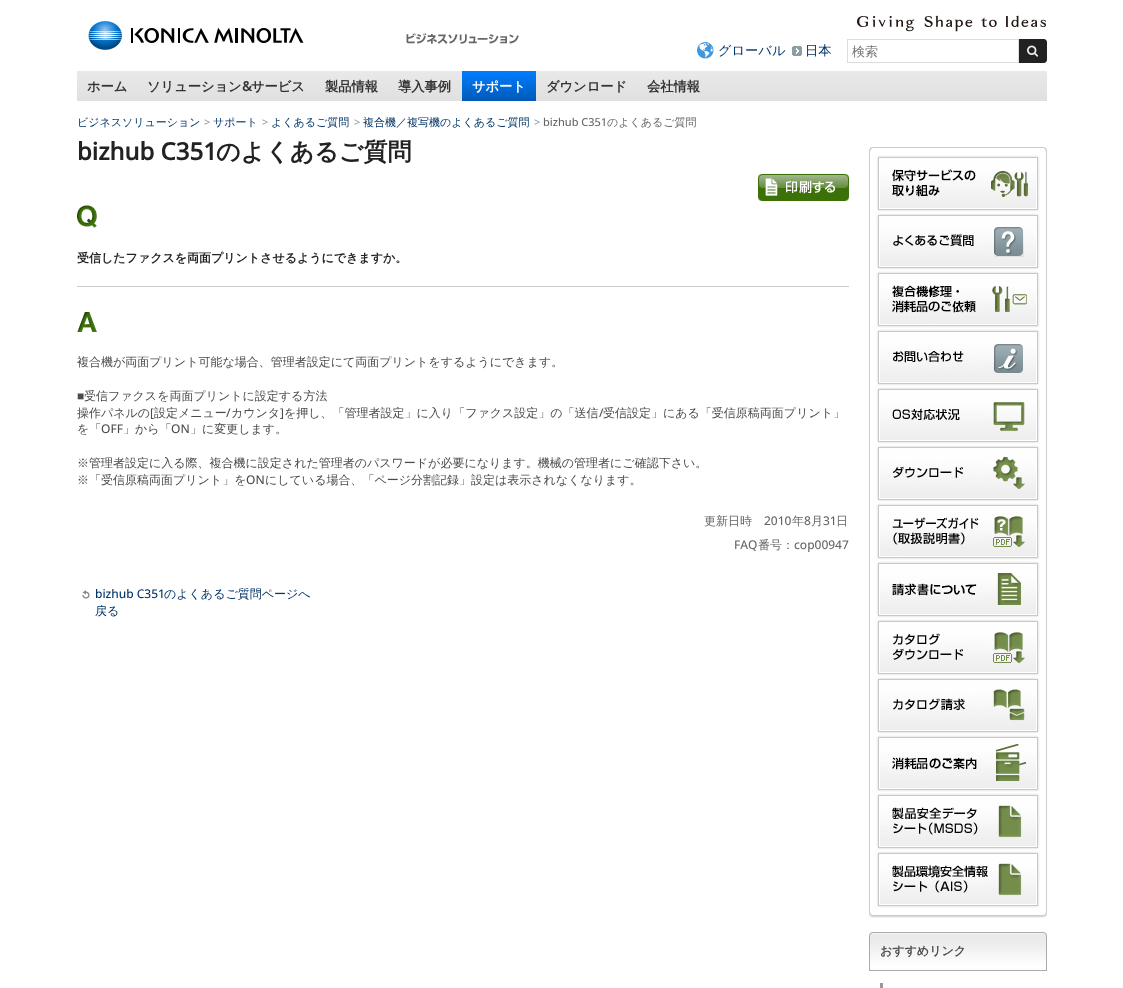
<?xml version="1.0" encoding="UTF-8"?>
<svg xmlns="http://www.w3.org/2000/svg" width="1123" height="988">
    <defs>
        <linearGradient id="g1" gradientUnits="userSpaceOnUse" x1="562" y1="71" x2="562" y2="101"><stop offset="0" stop-color="#E9E9E9"/><stop offset="1" stop-color="#E0E0E0"/></linearGradient>
        <linearGradient id="g2" gradientUnits="userSpaceOnUse" x1="499" y1="71" x2="499" y2="101"><stop offset="0" stop-color="#007DFF"/><stop offset="1" stop-color="#005AB8"/></linearGradient>
    </defs>
    <rect width="100%" height="100%" fill="#FFFFFF"/>
    <image x="88" y="21" width="216" height="29" href="img_01.png"/>
    <image x="406" y="33" width="113" height="11" href="img_02.png"/>
    <image x="857" y="15" width="189" height="17" href="img_03.png"/>
    <image x="697" y="42" width="17" height="17" href="img_04.png"/>
    <text x="718" y="55" font-family="WenQuanYi Zen Hei" font-size="13.25" font-weight="500" fill="#003366">グローバル</text>
    <image x="792" y="46" width="10" height="10" href="img_05.png"/>
    <text x="805" y="55" font-family="WenQuanYi Zen Hei" font-size="13.25" font-weight="500" fill="#003366">日本</text>
    <rect x="847.5" y="39.5" width="171" height="23" fill="none" stroke="#DDDDDD"/>
    <text x="852" y="56" font-family="WenQuanYi Zen Hei" font-size="13" font-weight="500" fill="#757575">検索</text>
    <path d="M 1019 39 H 1044 C 1045.5 39 1047 40.5 1047 42 V 60 C 1047 61.5 1045.5 63 1044 63 H 1019 Z" fill="#222222"/>
    <image x="1027" y="45" width="12" height="12" href="img_06.png"/>
    <rect x="77" y="71" width="970" height="30" fill="url(#g1)"/>
    <text x="87" y="91" font-family="WenQuanYi Zen Hei" font-size="13.25" font-weight="700" fill="#333333">ホーム</text>
    <text x="147" y="91" font-family="WenQuanYi Zen Hei" font-size="13.25" font-weight="700" fill="#333333">ソリューション</text>
    <text x="242" y="91" font-family="Open Sans" font-size="13.25" font-weight="700" fill="#333333">&amp;</text>
    <text x="251" y="91" font-family="WenQuanYi Zen Hei" font-size="13.25" font-weight="700" fill="#333333">サービス</text>
    <text x="325" y="91" font-family="WenQuanYi Zen Hei" font-size="13.25" font-weight="700" fill="#333333">製品情報</text>
    <text x="398" y="91" font-family="WenQuanYi Zen Hei" font-size="13.25" font-weight="700" fill="#333333">導入事例</text>
    <rect x="462" y="71" width="74" height="30" fill="url(#g2)"/>
    <text x="472" y="91" font-family="WenQuanYi Zen Hei" font-size="13.25" font-weight="700" fill="#FFFFFF">サポート</text>
    <text x="546" y="91" font-family="WenQuanYi Zen Hei" font-size="13.25" font-weight="700" fill="#333333">ダウンロード</text>
    <text x="647" y="91" font-family="WenQuanYi Zen Hei" font-size="13.25" font-weight="700" fill="#333333">会社情報</text>
    <text x="77" y="126" font-family="WenQuanYi Zen Hei" font-size="11" font-weight="500" fill="#003366">ビジネスソリューション</text>
    <text x="204" y="126" font-family="Open Sans" font-size="11" font-weight="500" fill="#8A9FA6">&gt;</text>
    <text x="213" y="126" font-family="WenQuanYi Zen Hei" font-size="11" font-weight="500" fill="#003366">サポート</text>
    <text x="262" y="126" font-family="Open Sans" font-size="11" font-weight="500" fill="#8A9FA6">&gt;</text>
    <text x="271" y="126" font-family="WenQuanYi Zen Hei" font-size="11" font-weight="500" fill="#003366">よくあるご質問</text>
    <text x="354" y="126" font-family="Open Sans" font-size="11" font-weight="500" fill="#8A9FA6">&gt;</text>
    <text x="363" y="126" font-family="WenQuanYi Zen Hei" font-size="11" font-weight="500" fill="#003366">複合機／複写機のよくあるご質問</text>
    <text x="534" y="126" font-family="Open Sans" font-size="11" font-weight="500" fill="#8A9FA6">&gt;</text>
    <text x="543" y="126" font-family="Open Sans" font-size="11" font-weight="500" fill="#666666">bizhub C351</text>
    <text x="607" y="126" font-family="WenQuanYi Zen Hei" font-size="11" font-weight="500" fill="#666666">のよくあるご質問</text>
    <text x="77" y="160" font-family="Open Sans" font-size="24" font-weight="700" fill="#222222">bizhub C351</text>
    <text x="216" y="160" font-family="WenQuanYi Zen Hei" font-size="24" font-weight="700" fill="#222222">のよくあるご質問</text>
    <image x="758" y="174" width="91" height="27" href="img_07.png"/>
    <rect x="77" y="286" width="772" height="1" fill="#CCCCCC"/>
    <image x="77" y="205" width="20" height="23" href="img_08.png"/>
    <text x="77" y="262" font-family="WenQuanYi Zen Hei" font-size="12" font-weight="700" fill="#222222">受信したファクスを両面プリントさせるようにできますか。</text>
    <image x="77" y="312" width="20" height="20" href="img_09.png"/>
    <text x="77" y="366" font-family="WenQuanYi Zen Hei" font-size="12" font-weight="500" fill="#4B4B4B">複合機が両面プリント可能な場合、管理者設定にて両面プリントをするようにできます。</text>
    <text x="77" y="400" font-family="Liberation Sans" font-size="12" fill="#4B4B4B">■</text>
    <text x="84" y="400" font-family="WenQuanYi Zen Hei" font-size="12" font-weight="500" fill="#4B4B4B">受信ファクスを両面プリントに設定する方法</text>
    <text x="77" y="417" font-family="WenQuanYi Zen Hei" font-size="12" font-weight="500" fill="#4B4B4B">操作パネルの</text>
    <text x="150" y="417" font-family="Open Sans" font-size="12" font-weight="500" fill="#4B4B4B">[</text>
    <text x="154" y="417" font-family="WenQuanYi Zen Hei" font-size="12" font-weight="500" fill="#4B4B4B">設定メニュー</text>
    <text x="226" y="417" font-family="Open Sans" font-size="12" font-weight="500" fill="#4B4B4B">/</text>
    <text x="231" y="417" font-family="WenQuanYi Zen Hei" font-size="12" font-weight="500" fill="#4B4B4B">カウンタ</text>
    <text x="280" y="417" font-family="Open Sans" font-size="12" font-weight="500" fill="#4B4B4B">]</text>
    <text x="284" y="417" font-family="WenQuanYi Zen Hei" font-size="12" font-weight="500" fill="#4B4B4B">を押し、「管理者設定」に入り「ファクス設定」の「送信</text>
    <text x="599" y="417" font-family="Open Sans" font-size="12" font-weight="500" fill="#4B4B4B">/</text>
    <text x="603" y="417" font-family="WenQuanYi Zen Hei" font-size="12" font-weight="500" fill="#4B4B4B">受信設定」にある「受信原稿両面プリント」</text>
    <text x="77" y="433" font-family="WenQuanYi Zen Hei" font-size="12" font-weight="500" fill="#4B4B4B">を「</text>
    <text x="101" y="433" font-family="Open Sans" font-size="12" font-weight="500" fill="#4B4B4B">OFF</text>
    <text x="123" y="433" font-family="WenQuanYi Zen Hei" font-size="12" font-weight="500" fill="#4B4B4B">」から「</text>
    <text x="171" y="433" font-family="Open Sans" font-size="12" font-weight="500" fill="#4B4B4B">ON</text>
    <text x="190" y="433" font-family="WenQuanYi Zen Hei" font-size="12" font-weight="500" fill="#4B4B4B">」に変更します。</text>
    <text font-family="WenQuanYi Zen Hei" font-size="12" font-weight="500" fill="#4B4B4B">
        <tspan x="77" y="467">※管理者設定に入る際、複合機に設定された管理者のパスワードが必要になります。機械の管理者にご確認下さい。</tspan>
        <tspan x="77" y="484">※「受信原稿両面プリント」を</tspan>
    </text>
    <text x="246" y="484" font-family="Open Sans" font-size="12" font-weight="500" fill="#4B4B4B">ON</text>
    <text x="265" y="484" font-family="WenQuanYi Zen Hei" font-size="12" font-weight="500" fill="#4B4B4B">にしている場合、「ページ分割記録」設定は表示されなくなります。</text>
    <text x="704" y="525" font-family="WenQuanYi Zen Hei" font-size="12" font-weight="500" fill="#666666">更新日時</text>
    <text x="764" y="525" font-family="Open Sans" font-size="12" font-weight="500" fill="#666666">2010</text>
    <text x="792" y="525" font-family="WenQuanYi Zen Hei" font-size="12" font-weight="500" fill="#666666">年</text>
    <text x="804" y="525" font-family="Open Sans" font-size="12" font-weight="500" fill="#666666">8</text>
    <text x="811" y="525" font-family="WenQuanYi Zen Hei" font-size="12" font-weight="500" fill="#666666">月</text>
    <text x="823" y="525" font-family="Open Sans" font-size="12" font-weight="500" fill="#666666">31</text>
    <text x="836" y="525" font-family="WenQuanYi Zen Hei" font-size="12" font-weight="500" fill="#666666">日</text>
    <text x="734" y="549" font-family="Open Sans" font-size="12" font-weight="500" fill="#666666">FAQ</text>
    <text x="758" y="549" font-family="WenQuanYi Zen Hei" font-size="12" font-weight="500" fill="#666666">番号：</text>
    <text x="794" y="549" font-family="Open Sans" font-size="12" font-weight="500" fill="#666666">cop00947</text>
    <image x="82" y="590" width="8" height="9" href="img_10.png"/>
    <text x="95" y="598" font-family="Open Sans" font-size="12" font-weight="500" fill="#003366">bizhub C351</text>
    <text x="164" y="598" font-family="WenQuanYi Zen Hei" font-size="12" font-weight="500" fill="#003366">のよくあるご質問ページへ</text>
    <text x="95" y="615" font-family="WenQuanYi Zen Hei" font-size="12" font-weight="500" fill="#003366">戻る</text>
    <image x="869" y="151" width="178" height="767" href="img_11.png"/>
    <image x="869" y="147" width="178" height="4" href="img_12.png"/>
    <image x="876" y="155" width="164" height="57" href="img_13.png"/>
    <image x="876" y="213" width="164" height="57" href="img_14.png"/>
    <image x="876" y="271" width="164" height="57" href="img_15.png"/>
    <image x="876" y="329" width="164" height="57" href="img_16.png"/>
    <image x="876" y="387" width="164" height="57" href="img_17.png"/>
    <image x="876" y="445" width="164" height="57" href="img_18.png"/>
    <image x="876" y="503" width="164" height="57" href="img_19.png"/>
    <image x="876" y="561" width="164" height="57" href="img_20.png"/>
    <image x="876" y="619" width="164" height="57" href="img_21.png"/>
    <image x="876" y="677" width="164" height="57" href="img_22.png"/>
    <image x="876" y="735" width="164" height="57" href="img_23.png"/>
    <image x="876" y="793" width="164" height="57" href="img_24.png"/>
    <image x="876" y="851" width="164" height="57" href="img_25.png"/>
    <image x="869" y="932" width="178" height="38" href="img_26.png"/>
    <rect x="869" y="970" width="178" height="1" fill="#AAAAAA"/>
    <text x="880" y="955" font-family="WenQuanYi Zen Hei" font-size="12" font-weight="700" fill="#4B4B4B">おすすめリンク</text>
    <rect x="880" y="983" width="3" height="5" fill="#999999"/>
</svg>
